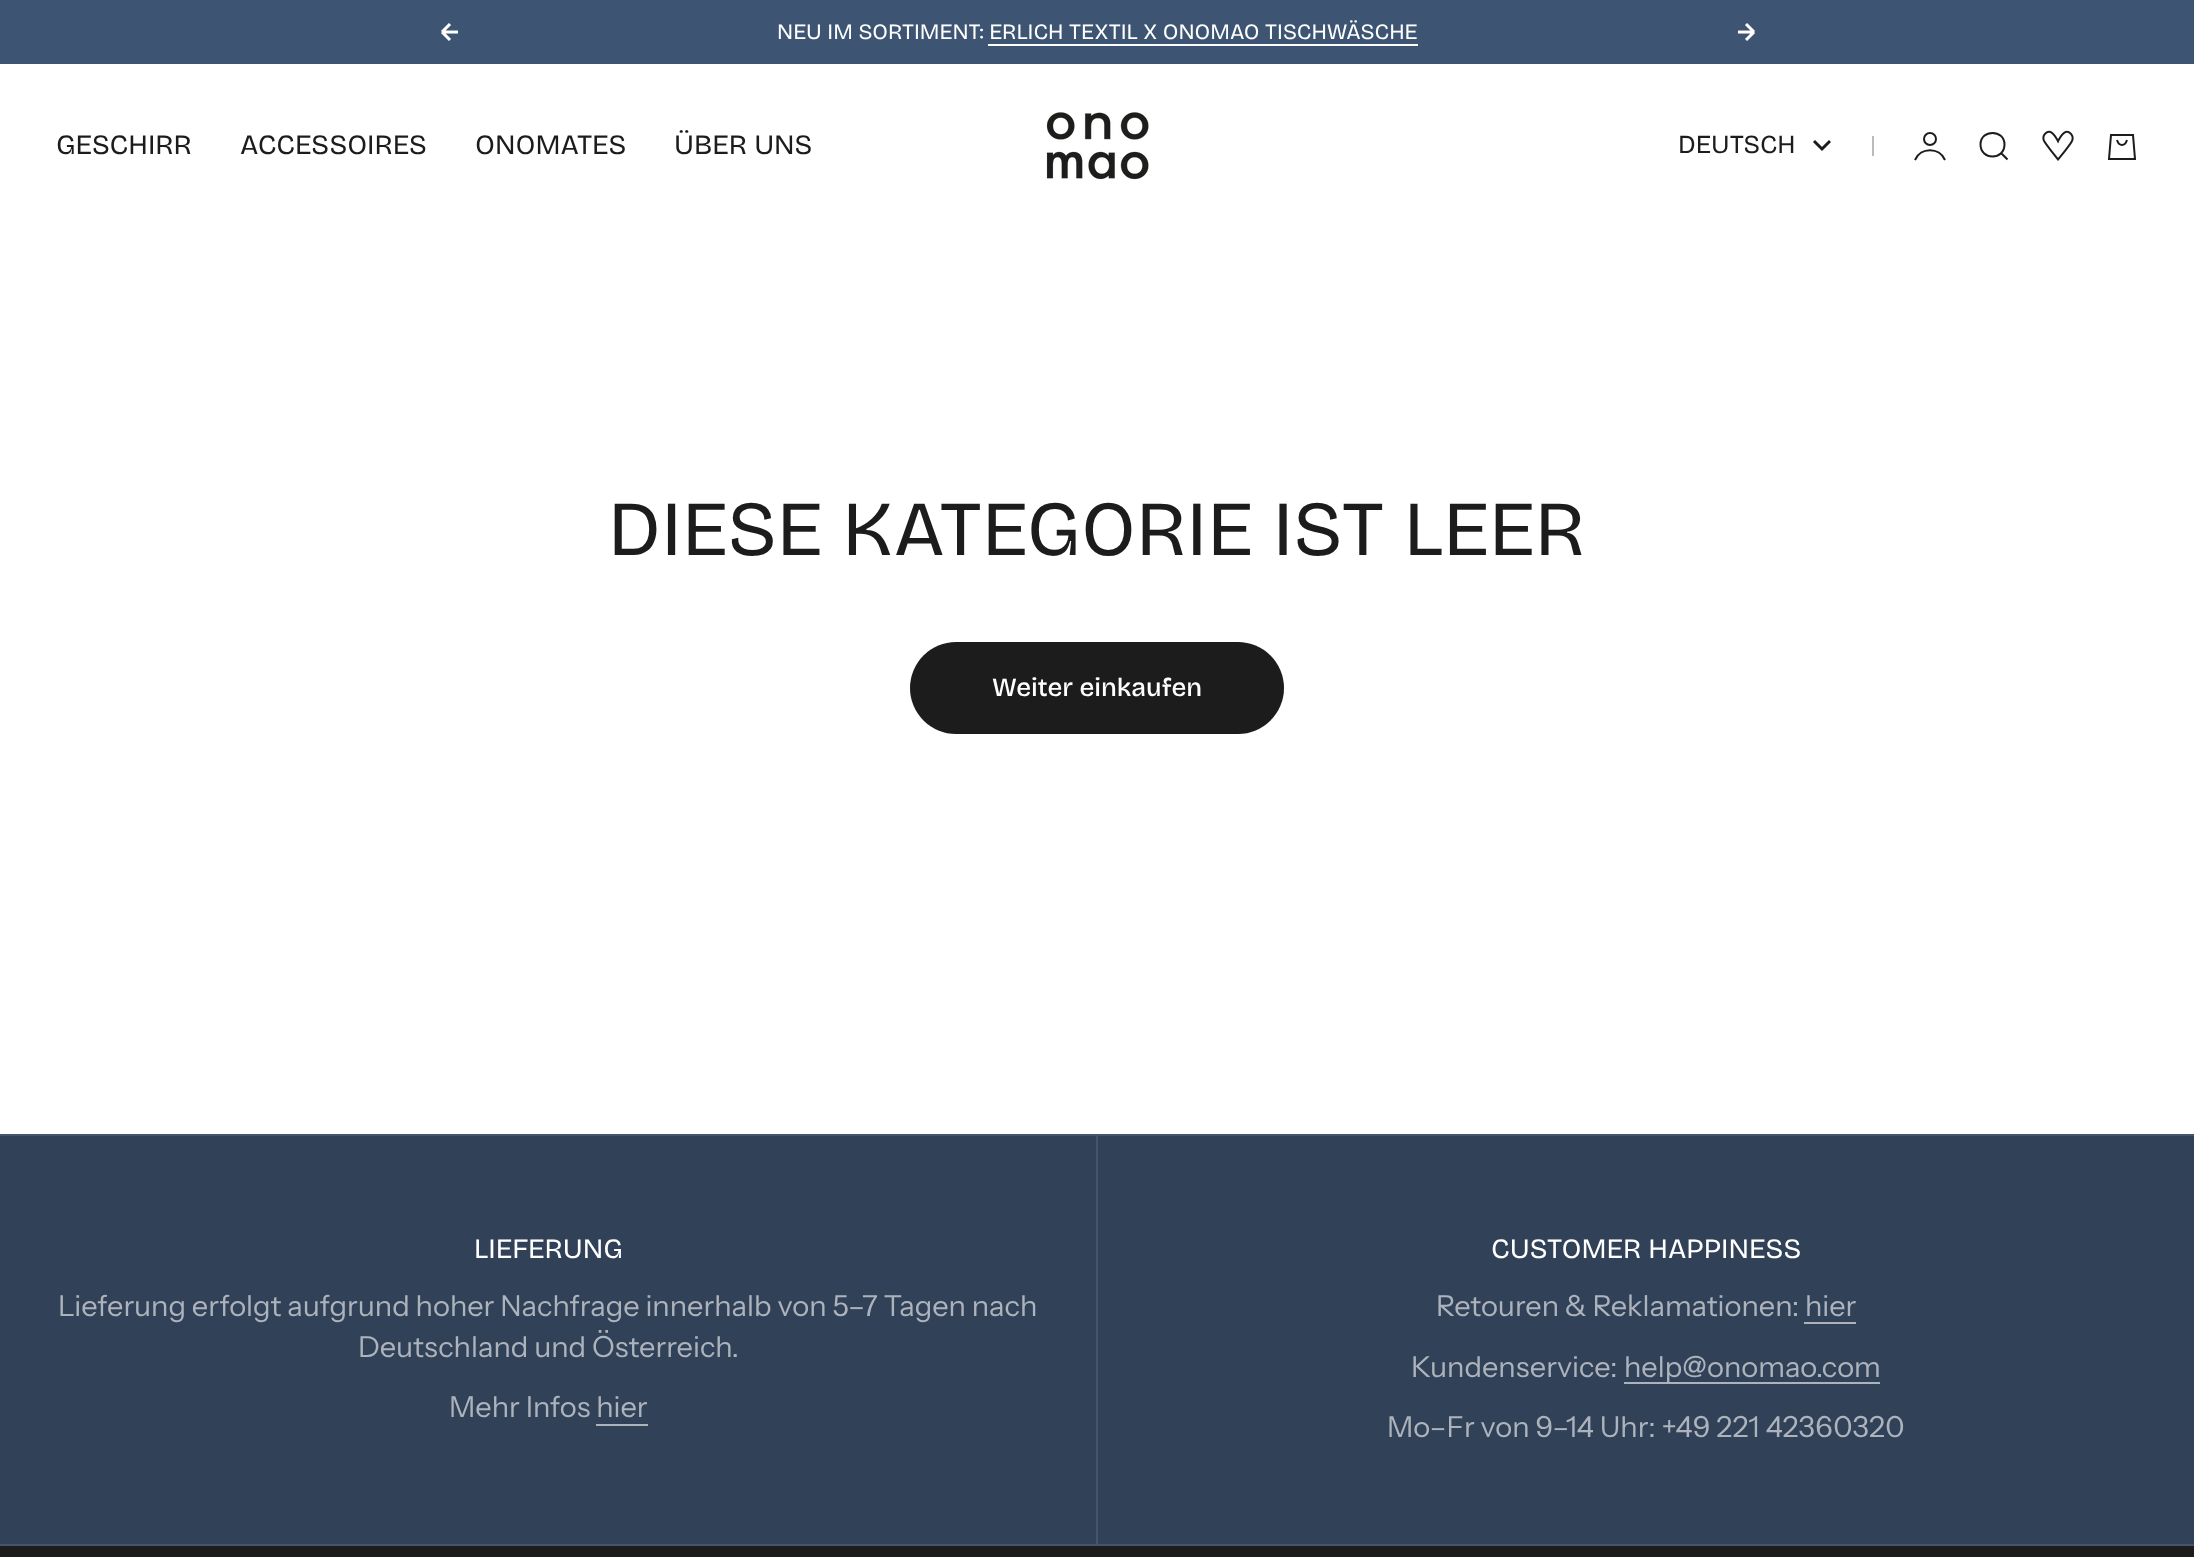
<?xml version="1.0" encoding="UTF-8"?>
<svg xmlns="http://www.w3.org/2000/svg" width="2194" height="1557">
    <rect width="100%" height="100%" fill="#FFFFFF"/>
    <rect x="0" y="0" width="2194" height="64" fill="#3D5473"/>
    <image x="441" y="23" width="17" height="18" href="img_01.png"/>
    <text x="777" y="39" font-family="Bricolage Grotesque" font-size="22" fill="#FFFFFF">NEU IM SORTIMENT: ERLICH TEXTIL X ONOMAO TISCHWÄSCHE</text>
    <rect x="988" y="44" width="430" height="2" fill="#FFFFFF"/>
    <image x="1738" y="23" width="17" height="18" href="img_02.png"/>
    <text x="56" y="154" font-family="Bricolage Grotesque" font-size="28" fill="#1C1C1C">GESCHIRR</text>
    <text x="240" y="154" font-family="Bricolage Grotesque" font-size="28" fill="#1C1C1C">ACCESSOIRES</text>
    <text x="475" y="154" font-family="Bricolage Grotesque" font-size="28" fill="#1C1C1C">ONOMATES</text>
    <text x="674" y="154" font-family="Bricolage Grotesque" font-size="28" fill="#1C1C1C">ÜBER UNS</text>
    <image x="1046" y="112" width="103" height="68" href="img_03.png"/>
    <text x="1678" y="153" font-family="Bricolage Grotesque" font-size="26" fill="#1C1C1C">DEUTSCH</text>
    <path d="M 1814 141 L 1822 149 L 1830 141" fill="none" stroke="#1C1C1C" stroke-width="3"/>
    <rect x="1872" y="136" width="2" height="20" fill="#BBBBBB"/>
    <path d="M 1945 160 C 1939.5 147 1920.5 147 1915 160" fill="none" stroke="#1C1C1C" stroke-width="2"/>
    <circle cx="1930" cy="139" r="6" fill="none" stroke="#1C1C1C" stroke-width="2"/>
    <path d="M 1980.5 144.5 C 1980.5 160.5 2004.5 160.5 2004.5 144.5 C 2004.5 129 1980.5 129 1980.5 144.5 Z M 2001 153 L 2007.5 159.5" fill="none" stroke="#1C1C1C" stroke-width="2"/>
    <image x="2042" y="130" width="32" height="31" href="img_04.png"/>
    <path d="M 2109 159 L 2111 135 H 2133 L 2135 159 Z M 2117 140 C 2119 146.5 2125 146.5 2127 140" fill="none" stroke="#1C1C1C" stroke-width="2"/>
    <text x="608" y="555" font-family="Bricolage Grotesque" font-size="77.75" fill="#1C1C1C">DIESE KATEGORIE IST LEER</text>
    <rect x="910" y="642" width="374" height="92" rx="46" fill="#1C1C1C"/>
    <text x="992" y="696" font-family="Bricolage Grotesque" font-size="26" font-weight="500" fill="#FFFFFF">Weiter einkaufen</text>
    <rect x="0" y="1136" width="2194" height="408" fill="#314158"/>
    <rect x="0" y="1134" width="2194" height="2" fill="#465469"/>
    <rect x="0" y="1544" width="2194" height="2" fill="#465469"/>
    <rect x="1096" y="1136" width="2" height="408" fill="#465469"/>
    <text x="474" y="1258" font-family="Bricolage Grotesque" font-size="28" fill="#FFFFFF">LIEFERUNG</text>
    <text x="58" y="1316" font-family="Instrument Sans" font-size="29" fill="#ADB3BC">Lieferung erfolgt aufgrund hoher Nachfrage innerhalb von 5–7 Tagen nach</text>
    <text x="358" y="1357" font-family="Instrument Sans" font-size="29" fill="#ADB3BC">Deutschland und Österreich.</text>
    <text x="449" y="1417" font-family="Instrument Sans" font-size="29" fill="#ADB3BC">Mehr Infos hier</text>
    <rect x="596" y="1424" width="52" height="2" fill="#ADB3BC"/>
    <text x="1491" y="1258" font-family="Bricolage Grotesque" font-size="28" fill="#FFFFFF">CUSTOMER HAPPINESS</text>
    <text x="1436" y="1316" font-family="Instrument Sans" font-size="29" fill="#ADB3BC">Retouren &amp; Reklamationen: hier</text>
    <rect x="1804" y="1322" width="52" height="2" fill="#ADB3BC"/>
    <text x="1411" y="1377" font-family="Instrument Sans" font-size="29" fill="#ADB3BC">Kundenservice:</text>
    <rect x="1624" y="1382" width="256" height="2" fill="#ADB3BC"/>
    <text x="1624" y="1377" font-family="Instrument Sans" font-size="29" fill="#ADB3BC">help@onomao.com</text>
    <text x="1387" y="1437" font-family="Instrument Sans" font-size="29" fill="#ADB3BC">Mo–Fr von 9–14 Uhr: +49 221 42360320</text>
    <rect x="0" y="1546" width="2194" height="11" fill="#1C1C1C"/>
</svg>
